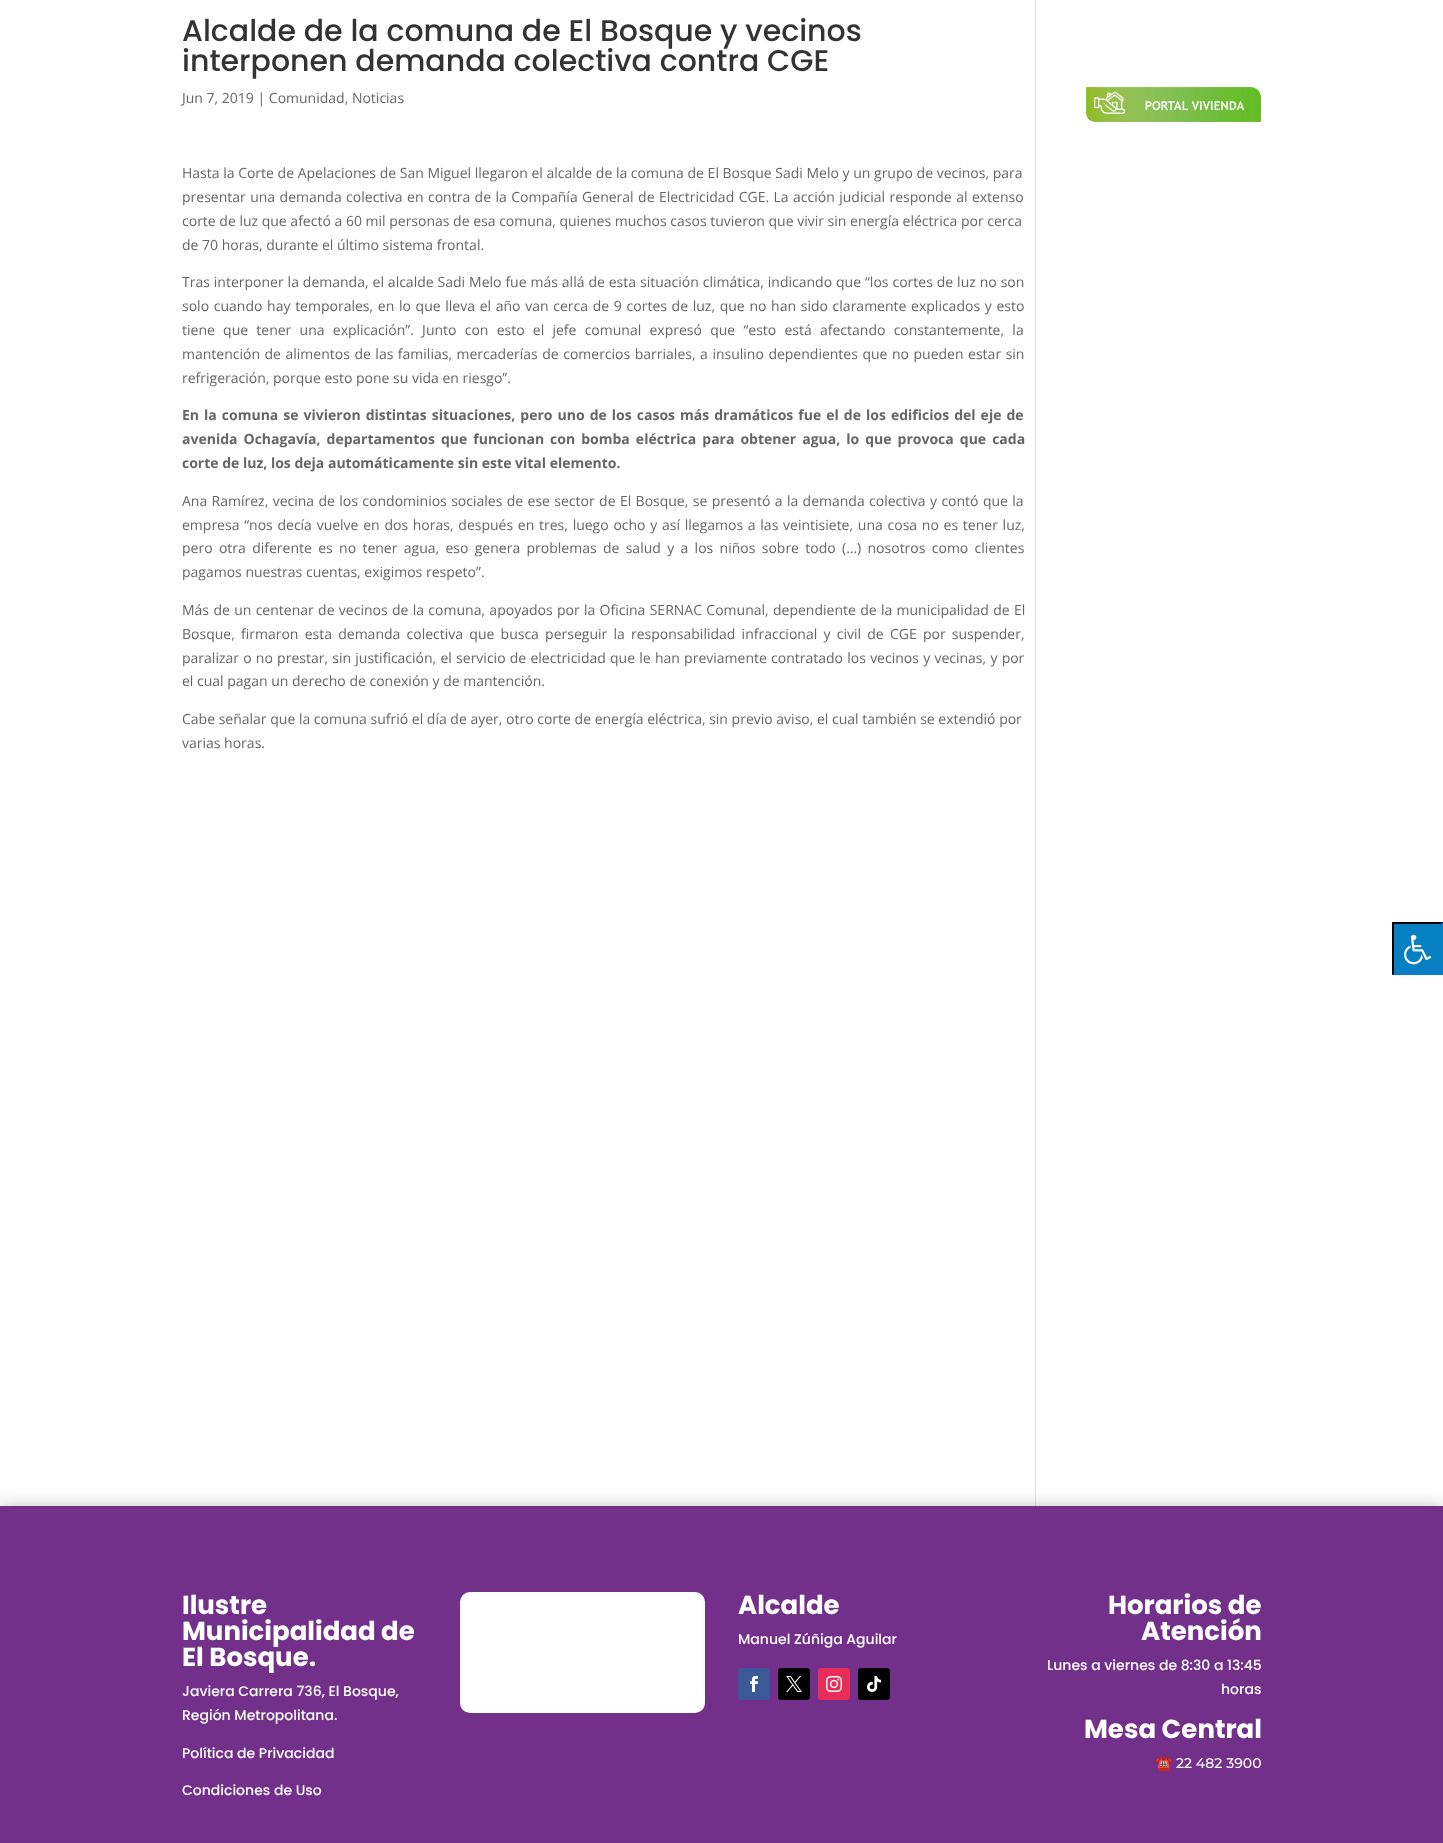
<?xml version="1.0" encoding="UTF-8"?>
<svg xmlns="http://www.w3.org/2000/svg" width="1443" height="1843">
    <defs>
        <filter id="blur1" x="-50%" y="-200%" width="200%" height="500%"><feGaussianBlur stdDeviation="9"/></filter>
    </defs>
    <rect width="100%" height="100%" fill="#FFFFFF"/>
    <text font-family="Poppins" font-size="30" font-weight="500" fill="#333333">
        <tspan x="182" y="41">Alcalde de la comuna de El Bosque y vecinos</tspan>
        <tspan x="182" y="71">interponen demanda colectiva contra CGE</tspan>
    </text>
    <text x="182" y="103" font-family="Open Sans" font-size="14" fill="#666666">Jun 7, 2019 | Comunidad, Noticias</text>
    <text font-family="Open Sans" font-size="14" fill="#666666">
        <tspan x="182" y="178">Hasta la Corte de Apelaciones de San Miguel llegaron el alcalde de la comuna de El Bosque Sadi Melo y un grupo de vecinos, para</tspan>
        <tspan x="182" y="202" word-spacing="0.8">presentar una demanda colectiva en contra de la Compañía General de Electricidad CGE. La acción judicial responde al extenso</tspan>
        <tspan x="182" y="226">corte de luz que afectó a 60 mil personas de esa comuna, quienes muchos casos tuvieron que vivir sin energía eléctrica por cerca</tspan>
        <tspan x="182" y="250">de 70 horas, durante el último sistema frontal.</tspan>
    </text>
    <text font-family="Open Sans" font-size="14" fill="#666666">
        <tspan x="182" y="287" word-spacing="0.3">Tras interponer la demanda, el alcalde Sadi Melo fue más allá de esta situación climática, indicando que “los cortes de luz no son</tspan>
        <tspan x="182" y="311" word-spacing="1.05">solo cuando hay temporales, en lo que lleva el año van cerca de 9 cortes de luz, que no han sido claramente explicados y esto</tspan>
        <tspan x="182" y="335" word-spacing="4.6">tiene que tener una explicación”. Junto con esto el jefe comunal expresó que “esto está afectando constantemente, la</tspan>
        <tspan x="182" y="359" word-spacing="0.9">mantención de alimentos de las familias, mercaderías de comercios barriales, a insulino dependientes que no pueden estar sin</tspan>
        <tspan x="182" y="383">refrigeración, porque esto pone su vida en riesgo”.</tspan>
    </text>
    <text font-family="Open Sans" font-size="14" font-weight="700" fill="#666666">
        <tspan x="182" y="420" word-spacing="1.4">En la comuna se vivieron distintas situaciones, pero uno de los casos más dramáticos fue el de los edificios del eje de</tspan>
        <tspan x="182" y="444" word-spacing="2.4">avenida Ochagavía, departamentos que funcionan con bomba eléctrica para obtener agua, lo que provoca que cada</tspan>
        <tspan x="182" y="468">corte de luz, los deja automáticamente sin este vital elemento.</tspan>
    </text>
    <text font-family="Open Sans" font-size="14" fill="#666666">
        <tspan x="182" y="506" word-spacing="0.75">Ana Ramírez, vecina de los condominios sociales de ese sector de El Bosque, se presentó a la demanda colectiva y contó que la</tspan>
        <tspan x="182" y="530" word-spacing="1.1">empresa “nos decía vuelve en dos horas, después en tres, luego ocho y así llegamos a las veintisiete, una cosa no es tener luz,</tspan>
        <tspan x="182" y="553" word-spacing="2.7">pero otra diferente es no tener agua, eso genera problemas de salud y a los niños sobre todo (…) nosotros como clientes</tspan>
        <tspan x="182" y="577">pagamos nuestras cuentas, exigimos respeto”.</tspan>
    </text>
    <text font-family="Open Sans" font-size="14" fill="#666666">
        <tspan x="182" y="615" word-spacing="0.7">Más de un centenar de vecinos de la comuna, apoyados por la Oficina SERNAC Comunal, dependiente de la municipalidad de El</tspan>
        <tspan x="182" y="639" word-spacing="2.6">Bosque, firmaron esta demanda colectiva que busca perseguir la responsabilidad infraccional y civil de CGE por suspender,</tspan>
        <tspan x="182" y="663" word-spacing="0.6">paralizar o no prestar, sin justificación, el servicio de electricidad que le han previamente contratado los vecinos y vecinas, y por</tspan>
        <tspan x="182" y="686">el cual pagan un derecho de conexión y de mantención.</tspan>
    </text>
    <text font-family="Open Sans" font-size="14" fill="#666666">
        <tspan x="182" y="724">Cabe señalar que la comuna sufrió el día de ayer, otro corte de energía eléctrica, sin previo aviso, el cual también se extendió por</tspan>
        <tspan x="182" y="748">varias horas.</tspan>
    </text>
    <image x="1086" y="87" width="175" height="35" href="img_01.png"/>
    <rect x="1035" y="0" width="1" height="1506" fill="#E2E2E2"/>
    <rect x="0" y="1508" width="1443" height="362" fill="#000000" fill-opacity="0.3" filter="url(#blur1)"/>
    <rect x="0" y="1506" width="1443" height="337" fill="#73308A"/>
    <text font-family="Poppins" font-size="26" font-weight="700" fill="#FFFFFF">
        <tspan x="182" y="1614">Ilustre</tspan>
        <tspan x="182" y="1640">Municipalidad de</tspan>
        <tspan x="182" y="1666">El Bosque.</tspan>
    </text>
    <text font-family="Poppins" font-size="14" font-weight="500" fill="#FFFFFF">
        <tspan x="182" y="1696">Javiera Carrera 736, El Bosque,</tspan>
        <tspan x="182" y="1720">Región Metropolitana.</tspan>
    </text>
    <text x="182" y="1758" font-family="Poppins" font-size="14" font-weight="500" fill="#FFFFFF">Política de Privacidad</text>
    <text x="182" y="1795" font-family="Poppins" font-size="14" font-weight="500" fill="#FFFFFF">Condiciones de Uso</text>
    <rect x="460" y="1592" width="245" height="121" rx="10" fill="#FFFFFF"/>
    <text x="738" y="1614" font-family="Poppins" font-size="26" font-weight="700" fill="#FFFFFF">Alcalde</text>
    <text x="738" y="1644" font-family="Poppins" font-size="14" font-weight="500" fill="#FFFFFF">Manuel Zúñiga Aguilar</text>
    <rect x="738" y="1668" width="32" height="32" rx="3" fill="#3B5998"/>
    <image x="750" y="1676" width="8" height="16" href="img_02.png"/>
    <rect x="778" y="1668" width="32" height="32" rx="3" fill="#000000"/>
    <image x="786" y="1676" width="16" height="16" href="img_03.png"/>
    <rect x="818" y="1668" width="32" height="32" rx="3" fill="#EA2C59"/>
    <image x="826" y="1676" width="16" height="16" href="img_04.png"/>
    <rect x="858" y="1668" width="32" height="32" rx="3" fill="#000000"/>
    <image x="867" y="1676" width="14" height="16" href="img_05.png"/>
    <text x="1108" y="1614" font-family="Poppins" font-size="26" font-weight="700" fill="#FFFFFF">Horarios de</text>
    <text x="1141" y="1640" font-family="Poppins" font-size="26" font-weight="700" fill="#FFFFFF">Atención</text>
    <text x="1047" y="1670" font-family="Poppins" font-size="14" font-weight="500" fill="#FFFFFF">Lunes a viernes de 8:30 a 13:45</text>
    <text x="1221" y="1694" font-family="Poppins" font-size="14" font-weight="500" fill="#FFFFFF">horas</text>
    <text x="1084" y="1738" font-family="Poppins" font-size="26" font-weight="700" fill="#FFFFFF">Mesa Central</text>
    <text x="1155" y="1768" font-family="Noto Color Emoji" font-size="14" fill="#FFFFFF">☎️</text>
    <text x="1176" y="1768" font-family="Montserrat" font-size="14" font-weight="100" fill="#FFFFFF">22 482 3900</text>
    <rect x="1392" y="922" width="51" height="53" fill="#0780C3"/>
    <path d="M 1392 922 H 1443 L 1442 924 H 1394 Z" fill="#000000"/>
    <path d="M 1443 922 V 975 L 1442 974 V 924 Z" fill="#0780C3"/>
    <path d="M 1392 975 V 922 L 1394 924 V 974 Z" fill="#000000"/>
    <image x="1404" y="934" width="28" height="31" href="img_06.png"/>
</svg>
